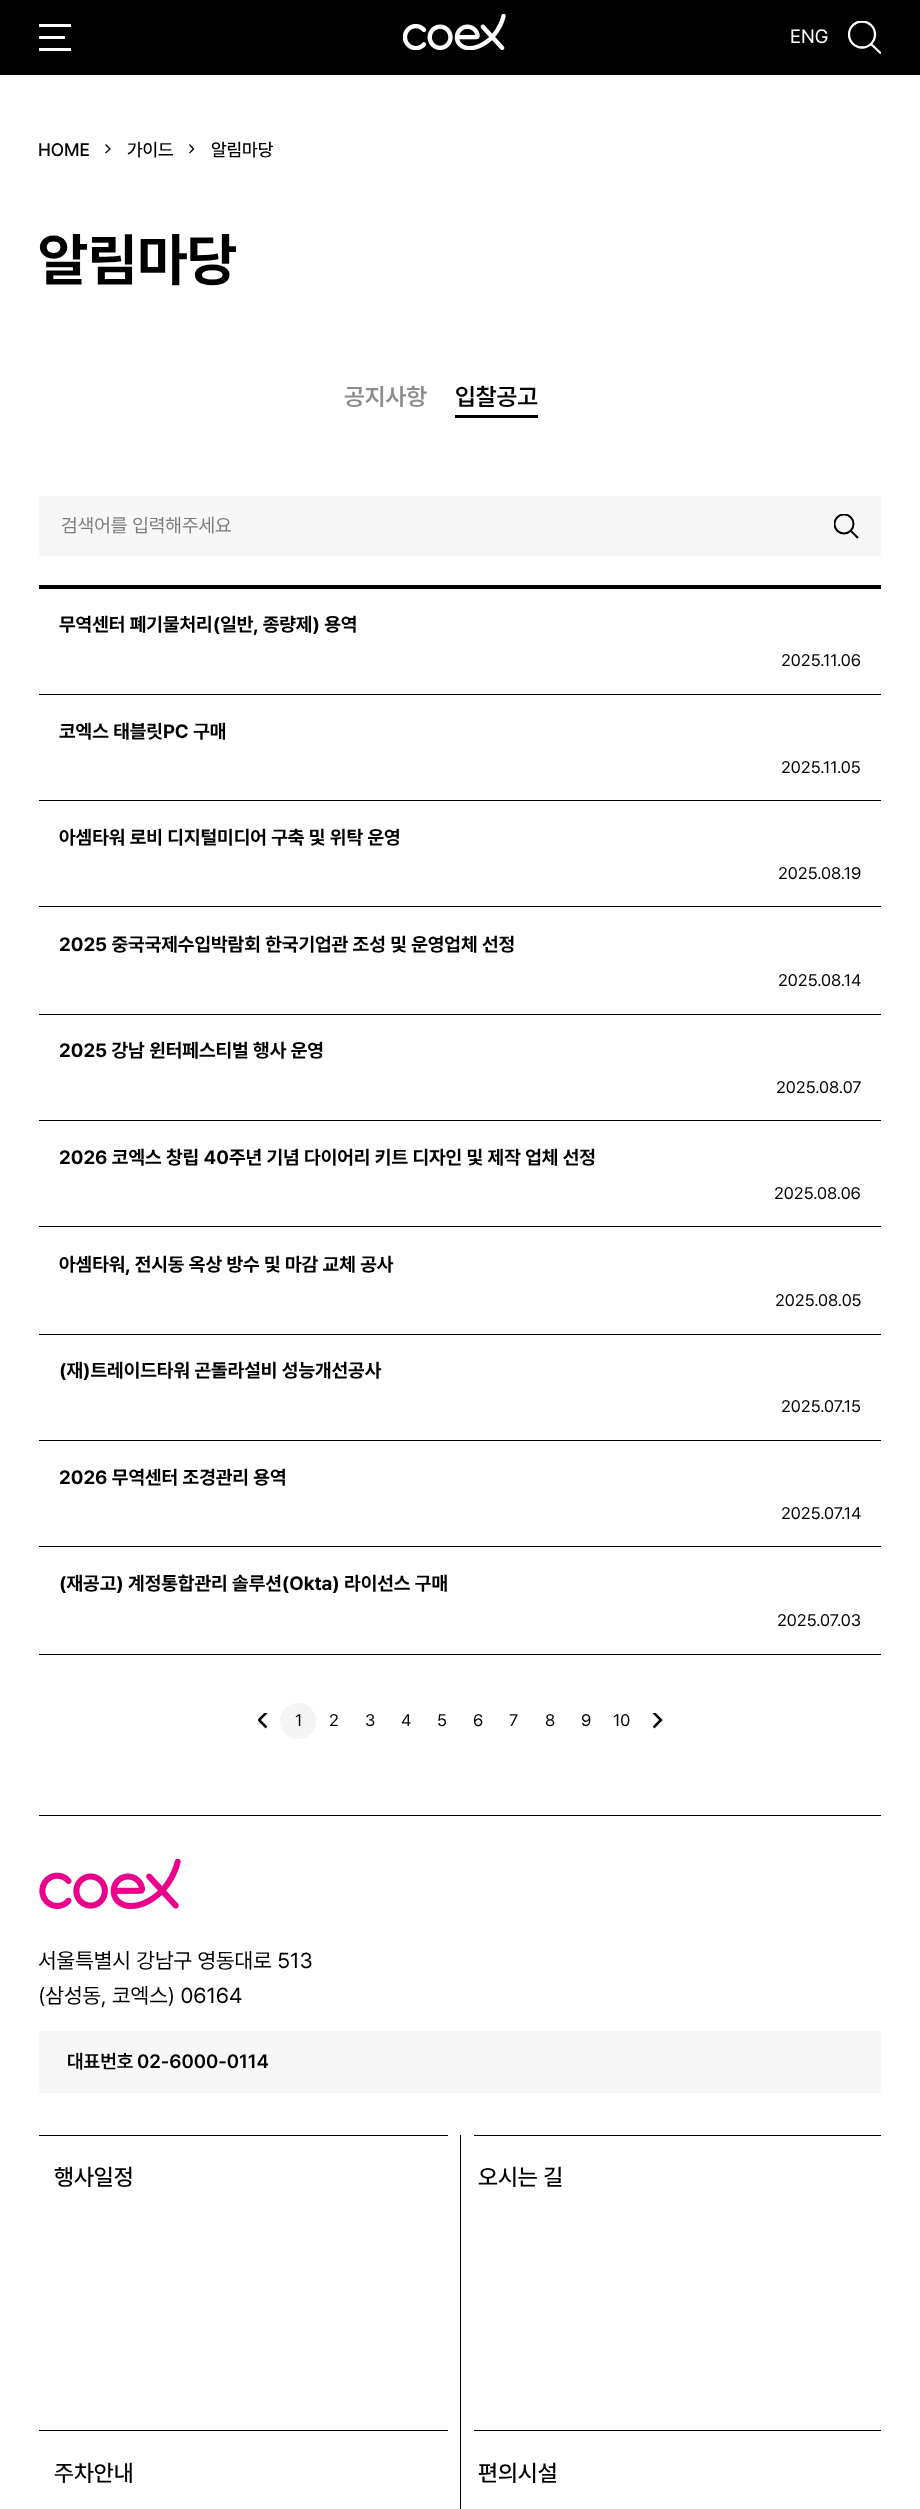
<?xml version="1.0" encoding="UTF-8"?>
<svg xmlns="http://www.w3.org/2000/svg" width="920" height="2509">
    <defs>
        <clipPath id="clip1"><rect x="848" y="21" width="33" height="33"/></clipPath>
        <clipPath id="clip2"><rect x="834" y="514" width="25" height="25"/></clipPath>
        <clipPath id="clip3"><rect x="258" y="1713" width="10" height="16"/></clipPath>
        <clipPath id="clip4"><rect x="653" y="1713" width="10" height="16"/></clipPath>
    </defs>
    <rect width="100%" height="100%" fill="#FFFFFF"/>
    <rect x="0" y="0" width="920" height="75" fill="#000000"/>
    <rect x="39" y="24" width="32" height="3" fill="#FFFFFF"/>
    <rect x="39" y="36" width="26" height="3" fill="#FFFFFF"/>
    <rect x="39" y="48" width="32" height="3" fill="#FFFFFF"/>
    <image x="403" y="14" width="103" height="36" href="img_01.png"/>
    <text x="790" y="43" font-family="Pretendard" font-size="19.2" fill="#FFFFFF">ENG</text>
    <g clip-path="url(#clip1)">
        <circle cx="862" cy="34.5" r="13" fill="none" stroke="#FFFFFF" stroke-width="2.3"/>
        <path d="M 870.5 43.5 L 881 53.5" fill="none" stroke="#FFFFFF" stroke-width="2.3"/>
    </g>
    <text x="38" y="156" font-family="Pretendard" font-size="18" font-weight="500" fill="#000000">HOME</text>
    <path d="M 105.5 144.5 L 110 149 L 105.5 153" fill="none" stroke="#000000" stroke-width="1.3"/>
    <text x="127" y="156" font-family="Pretendard" font-size="18" font-weight="500" fill="#000000">가이드</text>
    <path d="M 189.5 144.5 L 193.5 149 L 189.5 153" fill="none" stroke="#000000" stroke-width="1.3"/>
    <text x="211" y="156" font-family="Pretendard" font-size="18" font-weight="500" fill="#000000">알림마당</text>
    <text x="38" y="280" font-family="Pretendard" font-size="57.5" font-weight="700" fill="#000000">알림마당</text>
    <text x="344" y="405" font-family="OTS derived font" font-size="24" font-weight="600" fill="#8C8C8C">공지사항</text>
    <rect x="455" y="415" width="83" height="3" fill="#000000"/>
    <text x="455" y="405" font-family="OTS derived font" font-size="24" font-weight="600" fill="#000000">입찰공고</text>
    <rect x="39" y="496" width="842" height="60" fill="#F7F7F7"/>
    <text x="61" y="532" font-family="Pretendard" font-size="19.2" fill="#7B7B7B">검색어를 입력해주세요</text>
    <g clip-path="url(#clip2)">
        <circle cx="844" cy="524" r="9.5" fill="none" stroke="#000000" stroke-width="2"/>
    </g>
    <path d="M 850.5 530.5 L 858 538" fill="none" stroke="#000000" stroke-width="2"/>
    <rect x="39" y="585" width="842" height="4" fill="#000000"/>
    <rect x="39" y="694" width="842" height="1" fill="#000000"/>
    <text x="59" y="631" font-family="Pretendard" font-size="19.2" font-weight="700" fill="#000000">무역센터 폐기물처리(일반, 종량제) 용역</text>
    <text x="781" y="666" font-family="Pretendard" font-size="16.75" fill="#000000">2025.11.06</text>
    <rect x="39" y="800" width="842" height="1" fill="#000000"/>
    <text x="59" y="738" font-family="Pretendard" font-size="19.2" font-weight="700" fill="#000000">코엑스 태블릿PC 구매</text>
    <text x="781" y="773" font-family="Pretendard" font-size="16.75" fill="#000000">2025.11.05</text>
    <rect x="39" y="906" width="842" height="1" fill="#000000"/>
    <text x="59" y="844" font-family="Pretendard" font-size="19.2" font-weight="700" fill="#000000">아셈타워 로비 디지털미디어 구축 및 위탁 운영</text>
    <text x="778" y="879" font-family="Pretendard" font-size="16.75" fill="#000000">2025.08.19</text>
    <rect x="39" y="1014" width="842" height="1" fill="#000000"/>
    <text x="59" y="951" font-family="Pretendard" font-size="19.2" font-weight="700" fill="#000000">2025 중국국제수입박람회 한국기업관 조성 및 운영업체 선정</text>
    <text x="778" y="986" font-family="Pretendard" font-size="16.75" fill="#000000">2025.08.14</text>
    <rect x="39" y="1120" width="842" height="1" fill="#000000"/>
    <text x="59" y="1057" font-family="Pretendard" font-size="19.2" font-weight="700" fill="#000000">2025 강남 윈터페스티벌 행사 운영</text>
    <text x="776" y="1093" font-family="Pretendard" font-size="16.75" fill="#000000">2025.08.07</text>
    <rect x="39" y="1226" width="842" height="1" fill="#000000"/>
    <text x="59" y="1164" font-family="Pretendard" font-size="19.2" font-weight="700" fill="#000000">2026 코엑스 창립 40주년 기념 다이어리 키트 디자인 및 제작 업체 선정</text>
    <text x="774" y="1199" font-family="Pretendard" font-size="16.75" fill="#000000">2025.08.06</text>
    <rect x="39" y="1334" width="842" height="1" fill="#000000"/>
    <text x="59" y="1271" font-family="Pretendard" font-size="19.2" font-weight="700" fill="#000000">아셈타워, 전시동 옥상 방수 및 마감 교체 공사</text>
    <text x="775" y="1306" font-family="Pretendard" font-size="16.75" fill="#000000">2025.08.05</text>
    <rect x="39" y="1440" width="842" height="1" fill="#000000"/>
    <text x="59" y="1377" font-family="Pretendard" font-size="19.2" font-weight="700" fill="#000000">(재)트레이드타워 곤돌라설비 성능개선공사</text>
    <text x="781" y="1412" font-family="Pretendard" font-size="16.75" fill="#000000">2025.07.15</text>
    <rect x="39" y="1546" width="842" height="1" fill="#000000"/>
    <text x="59" y="1484" font-family="Pretendard" font-size="19.2" font-weight="700" fill="#000000">2026 무역센터 조경관리 용역</text>
    <text x="781" y="1519" font-family="Pretendard" font-size="16.75" fill="#000000">2025.07.14</text>
    <rect x="39" y="1654" width="842" height="1" fill="#000000"/>
    <text x="59" y="1590" font-family="Pretendard" font-size="19.2" font-weight="700" fill="#000000">(재공고) 계정통합관리 솔루션(Okta) 라이선스 구매</text>
    <text x="777" y="1626" font-family="Pretendard" font-size="16.75" fill="#000000">2025.07.03</text>
    <g clip-path="url(#clip3)">
        <path d="M 266.5 1712.5 L 259 1720 L 266.5 1727.5" fill="none" stroke="#000000" stroke-width="2.5"/>
    </g>
    <circle cx="298" cy="1721" r="18" fill="#F4F4F4"/>
    <text x="295" y="1726" font-family="Pretendard" font-size="16.75" fill="#000000">1</text>
    <text x="329" y="1726" font-family="Pretendard" font-size="16.75" fill="#000000">2</text>
    <text x="365" y="1726" font-family="Pretendard" font-size="16.75" fill="#000000">3</text>
    <text x="401" y="1726" font-family="Pretendard" font-size="16.75" fill="#000000">4</text>
    <text x="437" y="1726" font-family="Pretendard" font-size="16.75" fill="#000000">5</text>
    <text x="473" y="1726" font-family="Pretendard" font-size="16.75" fill="#000000">6</text>
    <text x="509" y="1726" font-family="Pretendard" font-size="16.75" fill="#000000">7</text>
    <text x="545" y="1726" font-family="Pretendard" font-size="16.75" fill="#000000">8</text>
    <text x="581" y="1726" font-family="Pretendard" font-size="16.75" fill="#000000">9</text>
    <text x="613" y="1726" font-family="Pretendard" font-size="16.75" fill="#000000">10</text>
    <g clip-path="url(#clip4)">
        <path d="M 653.5 1712.5 L 661 1720 L 653.5 1727.5" fill="none" stroke="#000000" stroke-width="2.5"/>
    </g>
    <rect x="39" y="1815" width="842" height="1" fill="#000000"/>
    <image x="39" y="1859" width="142" height="50" href="img_02.png"/>
    <text font-family="Pretendard" font-size="21.5" fill="#000000">
        <tspan x="38" y="1968">서울특별시 강남구 영동대로 513</tspan>
        <tspan x="38" y="2003">(삼성동, 코엑스) 06164</tspan>
    </text>
    <rect x="39" y="2031" width="842" height="62" fill="#F7F7F7"/>
    <text x="67" y="2068" font-family="OTS derived font" font-size="19.2" font-weight="600" fill="#000000">대표번호</text>
    <text x="137" y="2068" font-family="OTS derived font" font-size="19.2" font-weight="600" fill="#000000">02-6000-0114</text>
    <rect x="39" y="2135" width="409" height="1" fill="#000000"/>
    <text x="54" y="2185" font-family="Pretendard" font-size="23" font-weight="500" fill="#000000">행사일정</text>
    <rect x="39" y="2430" width="409" height="1" fill="#000000"/>
    <rect x="460" y="2135" width="1" height="374" fill="#000000"/>
    <rect x="474" y="2135" width="407" height="1" fill="#000000"/>
    <text x="478" y="2185" font-family="Pretendard" font-size="23" font-weight="500" fill="#000000">오시는 길</text>
    <rect x="474" y="2430" width="407" height="1" fill="#000000"/>
    <text x="54" y="2481" font-family="Pretendard" font-size="23" font-weight="500" fill="#000000">주차안내</text>
    <text x="478" y="2481" font-family="Pretendard" font-size="23" font-weight="500" fill="#000000">편의시설</text>
</svg>
